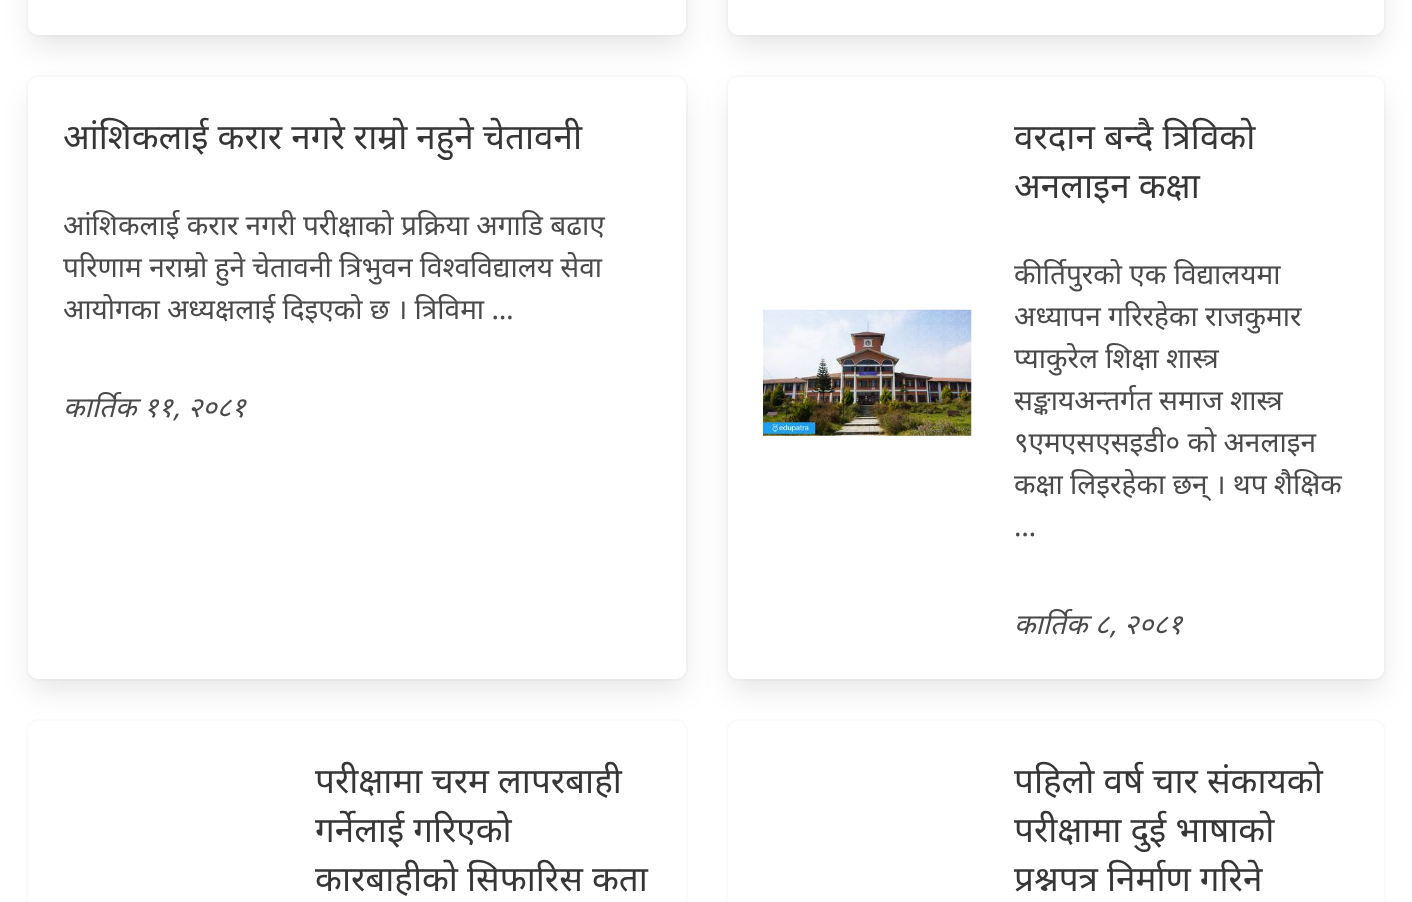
<?xml version="1.0" encoding="UTF-8"?>
<svg xmlns="http://www.w3.org/2000/svg" width="1412" height="902">
    <defs>
        <filter id="blur1" x="-50%" y="-200%" width="200%" height="500%"><feGaussianBlur stdDeviation="14"/></filter>
    </defs>
    <rect width="100%" height="100%" fill="#FFFFFF"/>
    <rect x="27" y="-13" width="660" height="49" rx="11" fill="none" stroke="#FAFAFA" stroke-width="2"/>
    <rect x="32" y="-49" width="651" height="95" rx="7" fill="#0A0A0A" fill-opacity="0.1" filter="url(#blur1)"/>
    <rect x="28" y="-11" width="658" height="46" rx="11" fill="#FFFFFF"/>
    <rect x="727" y="-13" width="658" height="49" rx="11" fill="none" stroke="#FAFAFA" stroke-width="2"/>
    <rect x="732" y="-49" width="649" height="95" rx="7" fill="#0A0A0A" fill-opacity="0.1" filter="url(#blur1)"/>
    <rect x="728" y="-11" width="656" height="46" rx="11" fill="#FFFFFF"/>
    <rect x="27" y="76" width="660" height="604" rx="11" fill="none" stroke="#FAFAFA" stroke-width="2"/>
    <rect x="32" y="95" width="651" height="595" rx="7" fill="#0A0A0A" fill-opacity="0.1" filter="url(#blur1)"/>
    <rect x="28" y="77" width="658" height="602" rx="11" fill="#FFFFFF"/>
    <text x="63" y="149" font-family="Noto Sans" font-size="35" fill="#363636">आंशिकलाई करार नगरे राम्रो नहुने चेतावनी</text>
    <text font-family="Noto Sans" font-size="28" fill="#4A4A4A">
        <tspan x="63" y="235">आंशिकलाई करार नगरी परीक्षाको प्रक्रिया अगाडि बढाए</tspan>
        <tspan x="63" y="277">परिणाम नराम्रो हुने चेतावनी त्रिभुवन विश्वविद्यालय सेवा</tspan>
        <tspan x="63" y="319">आयोगका अध्यक्षलाई दिइएको छ । त्रिविमा …</tspan>
    </text>
    <text x="63" y="417" font-family="Noto Sans" font-size="28" font-style="italic" fill="#4A4A4A">कार्तिक ११, २०८१</text>
    <rect x="727" y="76" width="658" height="604" rx="11" fill="none" stroke="#FAFAFA" stroke-width="2"/>
    <rect x="732" y="95" width="649" height="595" rx="7" fill="#0A0A0A" fill-opacity="0.1" filter="url(#blur1)"/>
    <rect x="728" y="77" width="656" height="602" rx="11" fill="#FFFFFF"/>
    <image x="763" y="309" width="209" height="127" href="img_01.png"/>
    <text font-family="Noto Sans" font-size="35" fill="#363636">
        <tspan x="1014" y="149">वरदान बन्दै त्रिविको</tspan>
        <tspan x="1014" y="198">अनलाइन कक्षा</tspan>
    </text>
    <text font-family="Noto Sans" font-size="28" fill="#4A4A4A">
        <tspan x="1014" y="284">कीर्तिपुरको एक विद्यालयमा</tspan>
        <tspan x="1014" y="326">अध्यापन गरिरहेका राजकुमार</tspan>
        <tspan x="1014" y="368">प्याकुरेल शिक्षा शास्त्र</tspan>
        <tspan x="1014" y="410">सङ्कायअन्तर्गत समाज शास्त्र</tspan>
        <tspan x="1014" y="452">९एमएसएसइडी० को अनलाइन</tspan>
        <tspan x="1014" y="494">कक्षा लिइरहेका छन् । थप शैक्षिक</tspan>
        <tspan x="1014" y="536">…</tspan>
    </text>
    <text x="1014" y="634" font-family="Noto Sans" font-size="28" font-style="italic" fill="#4A4A4A">कार्तिक ८, २०८१</text>
    <rect x="27" y="720" width="660" height="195" rx="11" fill="none" stroke="#FAFAFA" stroke-width="2"/>
    <text font-family="Noto Sans" font-size="35" fill="#363636">
        <tspan x="315" y="793">परीक्षामा चरम लापरबाही</tspan>
        <tspan x="315" y="842">गर्नेलाई गरिएको</tspan>
        <tspan x="315" y="891">कारबाहीको सिफारिस कता</tspan>
    </text>
    <rect x="727" y="720" width="658" height="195" rx="11" fill="none" stroke="#FAFAFA" stroke-width="2"/>
    <text font-family="Noto Sans" font-size="35" fill="#363636">
        <tspan x="1014" y="793">पहिलो वर्ष चार संकायको</tspan>
        <tspan x="1014" y="842">परीक्षामा दुई भाषाको</tspan>
        <tspan x="1014" y="891">प्रश्नपत्र निर्माण गरिने</tspan>
    </text>
</svg>
